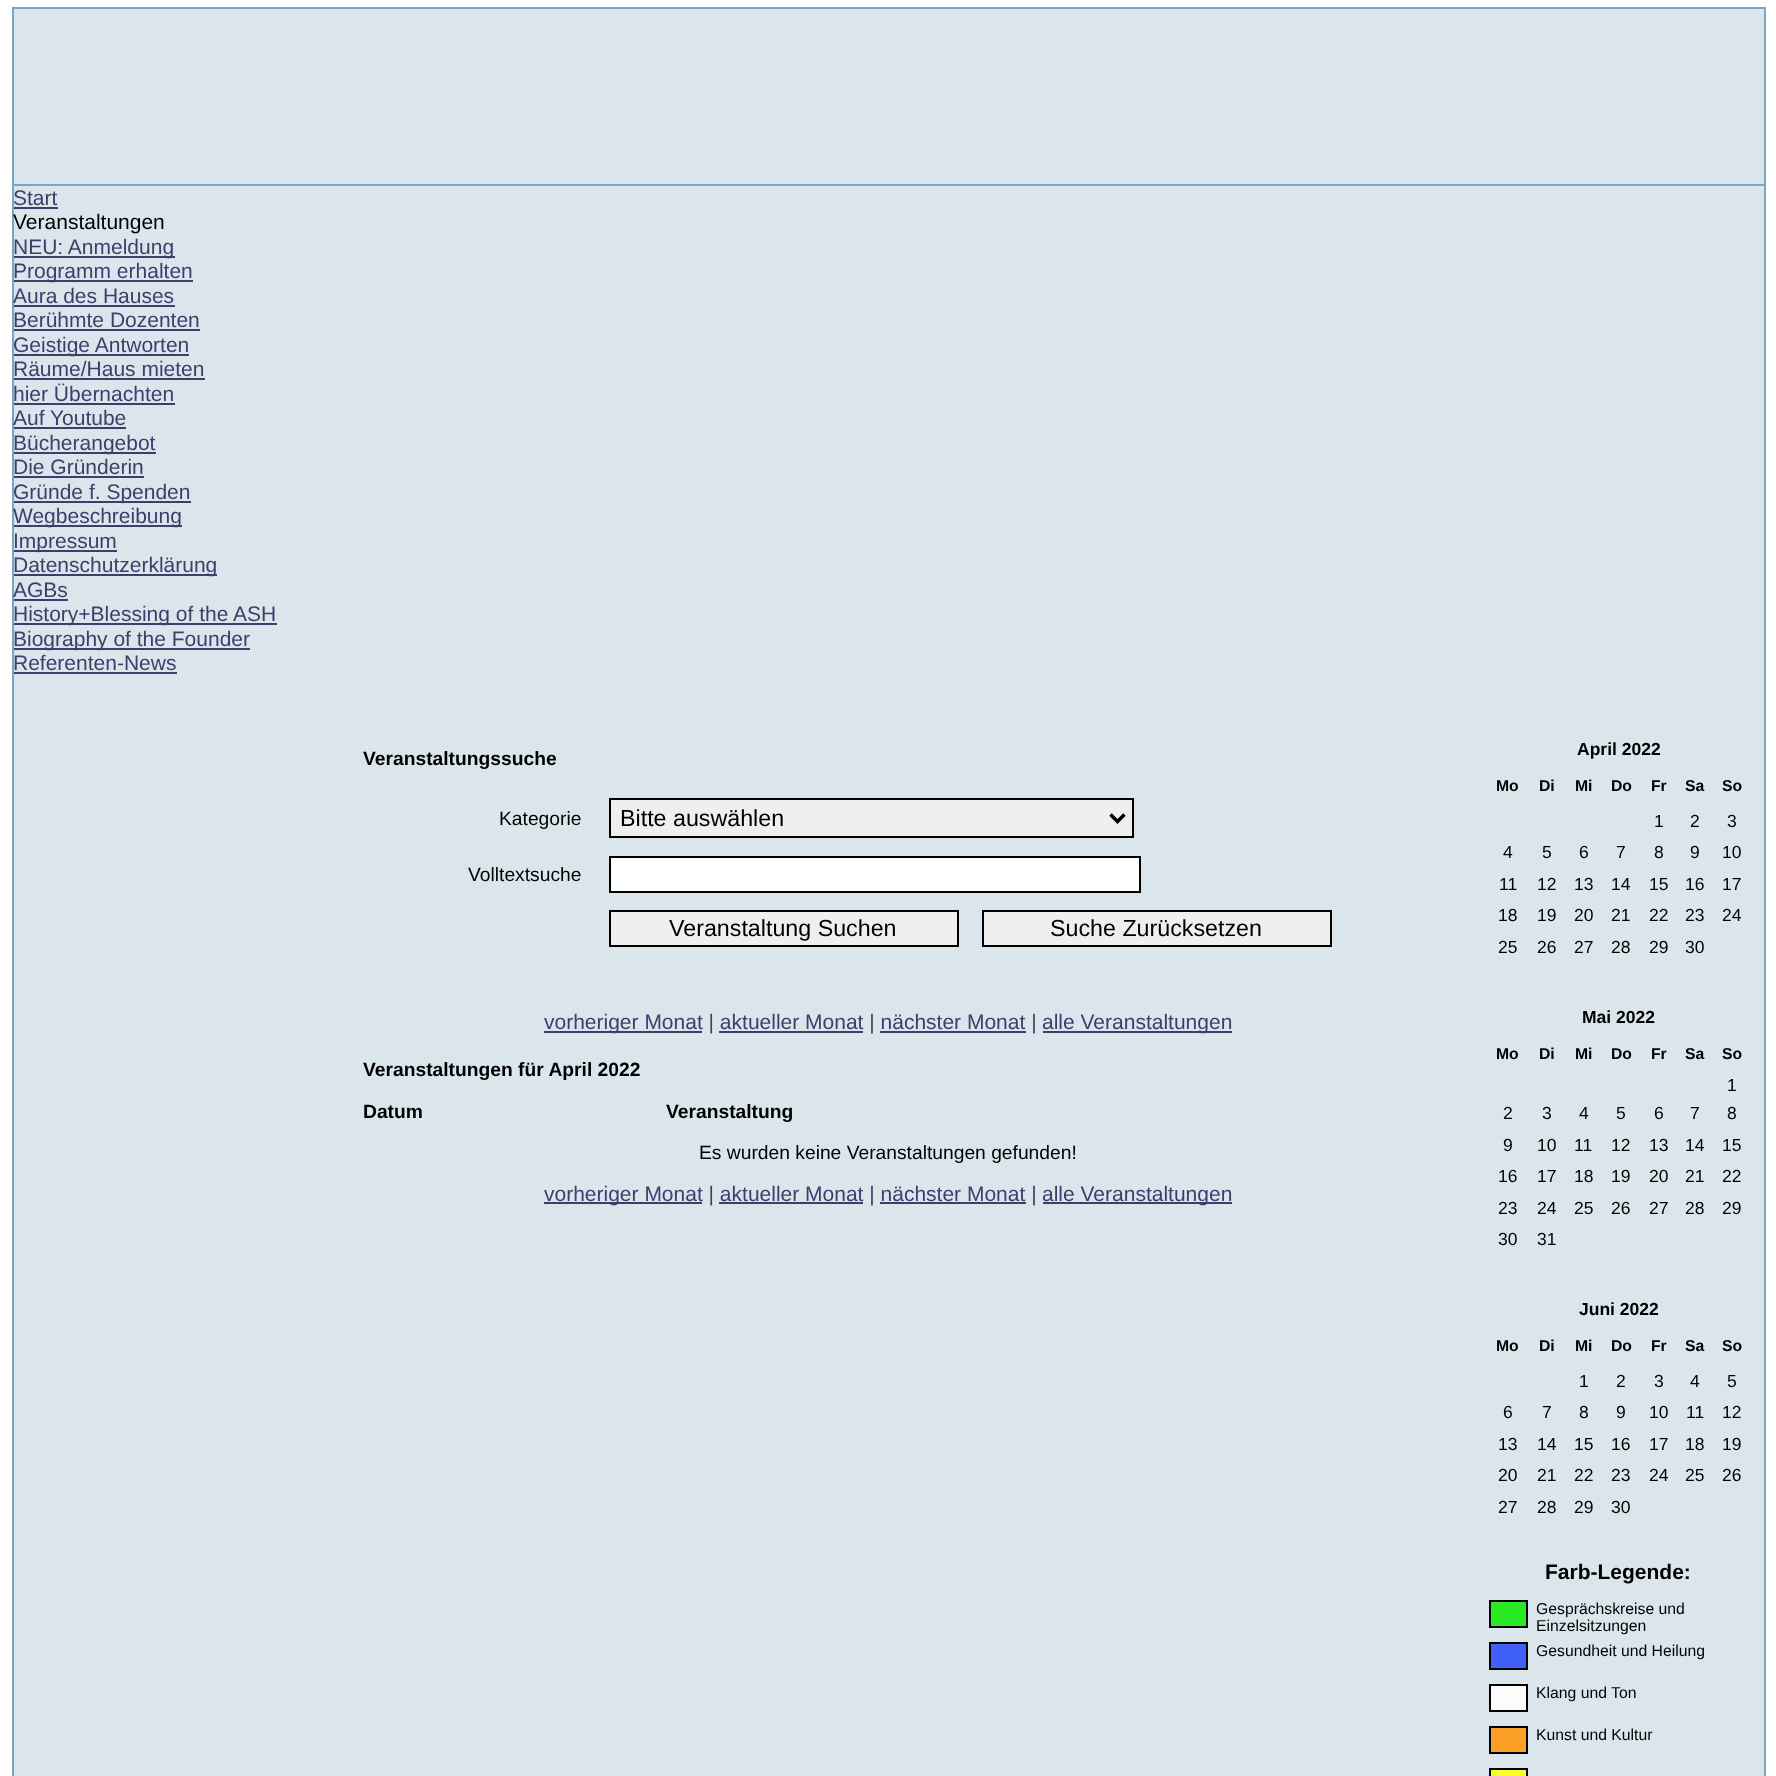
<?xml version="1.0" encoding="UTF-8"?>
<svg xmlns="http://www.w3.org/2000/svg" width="1776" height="1776">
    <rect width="100%" height="100%" fill="#FFFFFF"/>
    <rect x="13" y="8" width="1752" height="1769" fill="#DAE6EC" stroke="#7AA6C1" stroke-width="2"/>
    <rect x="14" y="184" width="1750" height="2" fill="#7AA6C1"/>
    <text x="13" y="205" font-family="Liberation Sans" font-size="21" fill="#3E3E6B">Start</text>
    <rect x="14" y="207" width="44" height="2" fill="#3E3E6B"/>
    <text x="13" y="229" font-family="Liberation Sans" font-size="21" fill="#000000">Veranstaltungen</text>
    <rect x="14" y="256" width="161" height="2" fill="#3E3E6B"/>
    <text x="13" y="254" font-family="Liberation Sans" font-size="21" fill="#3E3E6B">NEU: Anmeldung</text>
    <rect x="14" y="280" width="179" height="2" fill="#3E3E6B"/>
    <text font-family="Liberation Sans" font-size="21" fill="#3E3E6B">
        <tspan x="13" y="278">Programm erhalten</tspan>
        <tspan x="13" y="303">Aura des Hauses</tspan>
    </text>
    <rect x="14" y="305" width="161" height="2" fill="#3E3E6B"/>
    <text x="13" y="327" font-family="Liberation Sans" font-size="21" fill="#3E3E6B">Berühmte Dozenten</text>
    <rect x="14" y="329" width="186" height="2" fill="#3E3E6B"/>
    <rect x="14" y="354" width="175" height="2" fill="#3E3E6B"/>
    <text font-family="Liberation Sans" font-size="21" fill="#3E3E6B">
        <tspan x="13" y="352">Geistige Antworten</tspan>
        <tspan x="13" y="376">Räume/Haus mieten</tspan>
    </text>
    <rect x="14" y="378" width="191" height="2" fill="#3E3E6B"/>
    <text x="13" y="401" font-family="Liberation Sans" font-size="21" fill="#3E3E6B">hier Übernachten</text>
    <rect x="14" y="403" width="161" height="2" fill="#3E3E6B"/>
    <text x="13" y="425" font-family="Liberation Sans" font-size="21" fill="#3E3E6B">Auf Youtube</text>
    <rect x="14" y="427" width="112" height="2" fill="#3E3E6B"/>
    <rect x="14" y="452" width="142" height="2" fill="#3E3E6B"/>
    <text font-family="Liberation Sans" font-size="21" fill="#3E3E6B">
        <tspan x="13" y="450">Bücherangebot</tspan>
        <tspan x="13" y="474">Die Gründerin</tspan>
    </text>
    <rect x="14" y="476" width="130" height="2" fill="#3E3E6B"/>
    <rect x="14" y="501" width="177" height="2" fill="#3E3E6B"/>
    <text x="13" y="499" font-family="Liberation Sans" font-size="21" fill="#3E3E6B">Gründe f. Spenden</text>
    <rect x="14" y="525" width="168" height="2" fill="#3E3E6B"/>
    <text x="13" y="523" font-family="Liberation Sans" font-size="21" fill="#3E3E6B">Wegbeschreibung</text>
    <rect x="14" y="550" width="103" height="2" fill="#3E3E6B"/>
    <text x="13" y="548" font-family="Liberation Sans" font-size="21" fill="#3E3E6B">Impressum</text>
    <rect x="14" y="574" width="203" height="2" fill="#3E3E6B"/>
    <text font-family="Liberation Sans" font-size="21" fill="#3E3E6B">
        <tspan x="13" y="572">Datenschutzerklärung</tspan>
        <tspan x="13" y="597">AGBs</tspan>
    </text>
    <rect x="14" y="599" width="54" height="2" fill="#3E3E6B"/>
    <rect x="14" y="623" width="263" height="2" fill="#3E3E6B"/>
    <text x="13" y="621" font-family="Liberation Sans" font-size="21" fill="#3E3E6B">History+Blessing of the ASH</text>
    <rect x="14" y="648" width="236" height="2" fill="#3E3E6B"/>
    <text font-family="Liberation Sans" font-size="21" fill="#3E3E6B">
        <tspan x="13" y="646">Biography of the Founder</tspan>
        <tspan x="13" y="670">Referenten-News</tspan>
    </text>
    <rect x="14" y="672" width="163" height="2" fill="#3E3E6B"/>
    <text x="363" y="765" font-family="Liberation Sans" font-size="19.25" font-weight="700" fill="#000000">Veranstaltungssuche</text>
    <text x="499" y="825" font-family="Liberation Sans" font-size="19.25" fill="#000000">Kategorie</text>
    <rect x="610" y="799" width="523" height="38" fill="#EFEFEF" stroke="#000000" stroke-width="2"/>
    <path d="M 1110.5 814.5 L 1117.5 821.5 L 1124.5 814.5" fill="none" stroke="#000000" stroke-width="3.5"/>
    <text x="620" y="826" font-family="Liberation Sans" font-size="23.25" fill="#000000">Bitte auswählen</text>
    <text x="468" y="881" font-family="Liberation Sans" font-size="19.25" fill="#000000">Volltextsuche</text>
    <rect x="610" y="857" width="530" height="35" fill="#FFFFFF" stroke="#000000" stroke-width="2"/>
    <rect x="610" y="911" width="348" height="35" fill="#EFEFEF" stroke="#000000" stroke-width="2"/>
    <text x="669" y="936" font-family="Liberation Sans" font-size="23.25" fill="#000000">Veranstaltung Suchen</text>
    <rect x="983" y="911" width="348" height="35" fill="#EFEFEF" stroke="#000000" stroke-width="2"/>
    <text x="1050" y="936" font-family="Liberation Sans" font-size="23.25" fill="#000000">Suche Zurücksetzen</text>
    <rect x="544" y="1031" width="158" height="2" fill="#3E3E6B"/>
    <text x="544" y="1029" font-family="Liberation Sans" font-size="21" fill="#3E3E6B">vorheriger Monat | aktueller Monat | nächster Monat |</text>
    <rect x="1043" y="1031" width="189" height="2" fill="#3E3E6B"/>
    <text x="1042" y="1029" font-family="Liberation Sans" font-size="21" fill="#3E3E6B">alle Veranstaltungen</text>
    <rect x="719" y="1031" width="144" height="2" fill="#3E3E6B"/>
    <rect x="880" y="1031" width="146" height="2" fill="#3E3E6B"/>
    <text x="363" y="1076" font-family="Liberation Sans" font-size="19.25" font-weight="700" fill="#000000">Veranstaltungen für April 2022</text>
    <text x="363" y="1118" font-family="Liberation Sans" font-size="19.25" font-weight="700" fill="#000000">Datum</text>
    <text x="666" y="1118" font-family="Liberation Sans" font-size="19.25" font-weight="700" fill="#000000">Veranstaltung</text>
    <text x="699" y="1159" font-family="Liberation Sans" font-size="19.25" fill="#000000">Es wurden keine Veranstaltungen gefunden!</text>
    <rect x="544" y="1202" width="158" height="2" fill="#3E3E6B"/>
    <text x="544" y="1201" font-family="Liberation Sans" font-size="21" fill="#3E3E6B">vorheriger Monat | aktueller Monat | nächster Monat |</text>
    <rect x="1043" y="1202" width="189" height="2" fill="#3E3E6B"/>
    <text x="1042" y="1201" font-family="Liberation Sans" font-size="21" fill="#3E3E6B">alle Veranstaltungen</text>
    <rect x="719" y="1202" width="144" height="2" fill="#3E3E6B"/>
    <rect x="880" y="1202" width="146" height="2" fill="#3E3E6B"/>
    <text x="1577" y="755" font-family="Liberation Sans" font-size="17.5" font-weight="700" fill="#000000">April 2022</text>
    <text x="1496" y="791" font-family="Liberation Sans" font-size="15.75" font-weight="700" fill="#000000">Mo</text>
    <text x="1539" y="791" font-family="Liberation Sans" font-size="15.75" font-weight="700" fill="#000000">Di</text>
    <text x="1575" y="791" font-family="Liberation Sans" font-size="15.75" font-weight="700" fill="#000000">Mi</text>
    <text x="1611" y="791" font-family="Liberation Sans" font-size="15.75" font-weight="700" fill="#000000">Do</text>
    <text x="1651" y="791" font-family="Liberation Sans" font-size="15.75" font-weight="700" fill="#000000">Fr</text>
    <text x="1685" y="791" font-family="Liberation Sans" font-size="15.75" font-weight="700" fill="#000000">Sa</text>
    <text x="1722" y="791" font-family="Liberation Sans" font-size="15.75" font-weight="700" fill="#000000">So</text>
    <text x="1654" y="827" font-family="Liberation Sans" font-size="17.5" fill="#000000">1</text>
    <text x="1690" y="827" font-family="Liberation Sans" font-size="17.5" fill="#000000">2</text>
    <text x="1727" y="827" font-family="Liberation Sans" font-size="17.5" fill="#000000">3</text>
    <text x="1503" y="858" font-family="Liberation Sans" font-size="17.5" fill="#000000">4</text>
    <text x="1542" y="858" font-family="Liberation Sans" font-size="17.5" fill="#000000">5</text>
    <text x="1579" y="858" font-family="Liberation Sans" font-size="17.5" fill="#000000">6</text>
    <text x="1616" y="858" font-family="Liberation Sans" font-size="17.5" fill="#000000">7</text>
    <text x="1654" y="858" font-family="Liberation Sans" font-size="17.5" fill="#000000">8</text>
    <text x="1690" y="858" font-family="Liberation Sans" font-size="17.5" fill="#000000">9</text>
    <text x="1722" y="858" font-family="Liberation Sans" font-size="17.5" fill="#000000">10</text>
    <text x="1499" y="890" font-family="Liberation Sans" font-size="17.5" fill="#000000">11</text>
    <text x="1537" y="890" font-family="Liberation Sans" font-size="17.5" fill="#000000">12</text>
    <text x="1574" y="890" font-family="Liberation Sans" font-size="17.5" fill="#000000">13</text>
    <text x="1611" y="890" font-family="Liberation Sans" font-size="17.5" fill="#000000">14</text>
    <text x="1649" y="890" font-family="Liberation Sans" font-size="17.5" fill="#000000">15</text>
    <text x="1685" y="890" font-family="Liberation Sans" font-size="17.5" fill="#000000">16</text>
    <text x="1722" y="890" font-family="Liberation Sans" font-size="17.5" fill="#000000">17</text>
    <text x="1498" y="921" font-family="Liberation Sans" font-size="17.5" fill="#000000">18</text>
    <text x="1537" y="921" font-family="Liberation Sans" font-size="17.5" fill="#000000">19</text>
    <text x="1574" y="921" font-family="Liberation Sans" font-size="17.5" fill="#000000">20</text>
    <text x="1611" y="921" font-family="Liberation Sans" font-size="17.5" fill="#000000">21</text>
    <text x="1649" y="921" font-family="Liberation Sans" font-size="17.5" fill="#000000">22</text>
    <text x="1685" y="921" font-family="Liberation Sans" font-size="17.5" fill="#000000">23</text>
    <text x="1722" y="921" font-family="Liberation Sans" font-size="17.5" fill="#000000">24</text>
    <text x="1498" y="953" font-family="Liberation Sans" font-size="17.5" fill="#000000">25</text>
    <text x="1537" y="953" font-family="Liberation Sans" font-size="17.5" fill="#000000">26</text>
    <text x="1574" y="953" font-family="Liberation Sans" font-size="17.5" fill="#000000">27</text>
    <text x="1611" y="953" font-family="Liberation Sans" font-size="17.5" fill="#000000">28</text>
    <text x="1649" y="953" font-family="Liberation Sans" font-size="17.5" fill="#000000">29</text>
    <text x="1685" y="953" font-family="Liberation Sans" font-size="17.5" fill="#000000">30</text>
    <text x="1582" y="1023" font-family="Liberation Sans" font-size="17.5" font-weight="700" fill="#000000">Mai 2022</text>
    <text x="1496" y="1059" font-family="Liberation Sans" font-size="15.75" font-weight="700" fill="#000000">Mo</text>
    <text x="1539" y="1059" font-family="Liberation Sans" font-size="15.75" font-weight="700" fill="#000000">Di</text>
    <text x="1575" y="1059" font-family="Liberation Sans" font-size="15.75" font-weight="700" fill="#000000">Mi</text>
    <text x="1611" y="1059" font-family="Liberation Sans" font-size="15.75" font-weight="700" fill="#000000">Do</text>
    <text x="1651" y="1059" font-family="Liberation Sans" font-size="15.75" font-weight="700" fill="#000000">Fr</text>
    <text x="1685" y="1059" font-family="Liberation Sans" font-size="15.75" font-weight="700" fill="#000000">Sa</text>
    <text x="1722" y="1059" font-family="Liberation Sans" font-size="15.75" font-weight="700" fill="#000000">So</text>
    <text x="1727" y="1091" font-family="Liberation Sans" font-size="17.5" fill="#000000">1</text>
    <text x="1503" y="1119" font-family="Liberation Sans" font-size="17.5" fill="#000000">2</text>
    <text x="1542" y="1119" font-family="Liberation Sans" font-size="17.5" fill="#000000">3</text>
    <text x="1579" y="1119" font-family="Liberation Sans" font-size="17.5" fill="#000000">4</text>
    <text x="1616" y="1119" font-family="Liberation Sans" font-size="17.5" fill="#000000">5</text>
    <text x="1654" y="1119" font-family="Liberation Sans" font-size="17.5" fill="#000000">6</text>
    <text x="1690" y="1119" font-family="Liberation Sans" font-size="17.5" fill="#000000">7</text>
    <text x="1727" y="1119" font-family="Liberation Sans" font-size="17.5" fill="#000000">8</text>
    <text x="1503" y="1151" font-family="Liberation Sans" font-size="17.5" fill="#000000">9</text>
    <text x="1537" y="1151" font-family="Liberation Sans" font-size="17.5" fill="#000000">10</text>
    <text x="1574" y="1151" font-family="Liberation Sans" font-size="17.5" fill="#000000">11</text>
    <text x="1611" y="1151" font-family="Liberation Sans" font-size="17.5" fill="#000000">12</text>
    <text x="1649" y="1151" font-family="Liberation Sans" font-size="17.5" fill="#000000">13</text>
    <text x="1685" y="1151" font-family="Liberation Sans" font-size="17.5" fill="#000000">14</text>
    <text x="1722" y="1151" font-family="Liberation Sans" font-size="17.5" fill="#000000">15</text>
    <text x="1498" y="1182" font-family="Liberation Sans" font-size="17.5" fill="#000000">16</text>
    <text x="1537" y="1182" font-family="Liberation Sans" font-size="17.5" fill="#000000">17</text>
    <text x="1574" y="1182" font-family="Liberation Sans" font-size="17.5" fill="#000000">18</text>
    <text x="1611" y="1182" font-family="Liberation Sans" font-size="17.5" fill="#000000">19</text>
    <text x="1649" y="1182" font-family="Liberation Sans" font-size="17.5" fill="#000000">20</text>
    <text x="1685" y="1182" font-family="Liberation Sans" font-size="17.5" fill="#000000">21</text>
    <text x="1722" y="1182" font-family="Liberation Sans" font-size="17.5" fill="#000000">22</text>
    <text x="1498" y="1214" font-family="Liberation Sans" font-size="17.5" fill="#000000">23</text>
    <text x="1537" y="1214" font-family="Liberation Sans" font-size="17.5" fill="#000000">24</text>
    <text x="1574" y="1214" font-family="Liberation Sans" font-size="17.5" fill="#000000">25</text>
    <text x="1611" y="1214" font-family="Liberation Sans" font-size="17.5" fill="#000000">26</text>
    <text x="1649" y="1214" font-family="Liberation Sans" font-size="17.5" fill="#000000">27</text>
    <text x="1685" y="1214" font-family="Liberation Sans" font-size="17.5" fill="#000000">28</text>
    <text x="1722" y="1214" font-family="Liberation Sans" font-size="17.5" fill="#000000">29</text>
    <text x="1498" y="1245" font-family="Liberation Sans" font-size="17.5" fill="#000000">30</text>
    <text x="1537" y="1245" font-family="Liberation Sans" font-size="17.5" fill="#000000">31</text>
    <text x="1579" y="1315" font-family="Liberation Sans" font-size="17.5" font-weight="700" fill="#000000">Juni 2022</text>
    <text x="1496" y="1351" font-family="Liberation Sans" font-size="15.75" font-weight="700" fill="#000000">Mo</text>
    <text x="1539" y="1351" font-family="Liberation Sans" font-size="15.75" font-weight="700" fill="#000000">Di</text>
    <text x="1575" y="1351" font-family="Liberation Sans" font-size="15.75" font-weight="700" fill="#000000">Mi</text>
    <text x="1611" y="1351" font-family="Liberation Sans" font-size="15.75" font-weight="700" fill="#000000">Do</text>
    <text x="1651" y="1351" font-family="Liberation Sans" font-size="15.75" font-weight="700" fill="#000000">Fr</text>
    <text x="1685" y="1351" font-family="Liberation Sans" font-size="15.75" font-weight="700" fill="#000000">Sa</text>
    <text x="1722" y="1351" font-family="Liberation Sans" font-size="15.75" font-weight="700" fill="#000000">So</text>
    <text x="1579" y="1387" font-family="Liberation Sans" font-size="17.5" fill="#000000">1</text>
    <text x="1616" y="1387" font-family="Liberation Sans" font-size="17.5" fill="#000000">2</text>
    <text x="1654" y="1387" font-family="Liberation Sans" font-size="17.5" fill="#000000">3</text>
    <text x="1690" y="1387" font-family="Liberation Sans" font-size="17.5" fill="#000000">4</text>
    <text x="1727" y="1387" font-family="Liberation Sans" font-size="17.5" fill="#000000">5</text>
    <text x="1503" y="1418" font-family="Liberation Sans" font-size="17.5" fill="#000000">6</text>
    <text x="1542" y="1418" font-family="Liberation Sans" font-size="17.5" fill="#000000">7</text>
    <text x="1579" y="1418" font-family="Liberation Sans" font-size="17.5" fill="#000000">8</text>
    <text x="1616" y="1418" font-family="Liberation Sans" font-size="17.5" fill="#000000">9</text>
    <text x="1649" y="1418" font-family="Liberation Sans" font-size="17.5" fill="#000000">10</text>
    <text x="1686" y="1418" font-family="Liberation Sans" font-size="17.5" fill="#000000">11</text>
    <text x="1722" y="1418" font-family="Liberation Sans" font-size="17.5" fill="#000000">12</text>
    <text x="1498" y="1450" font-family="Liberation Sans" font-size="17.5" fill="#000000">13</text>
    <text x="1537" y="1450" font-family="Liberation Sans" font-size="17.5" fill="#000000">14</text>
    <text x="1574" y="1450" font-family="Liberation Sans" font-size="17.5" fill="#000000">15</text>
    <text x="1611" y="1450" font-family="Liberation Sans" font-size="17.5" fill="#000000">16</text>
    <text x="1649" y="1450" font-family="Liberation Sans" font-size="17.5" fill="#000000">17</text>
    <text x="1685" y="1450" font-family="Liberation Sans" font-size="17.5" fill="#000000">18</text>
    <text x="1722" y="1450" font-family="Liberation Sans" font-size="17.5" fill="#000000">19</text>
    <text x="1498" y="1481" font-family="Liberation Sans" font-size="17.5" fill="#000000">20</text>
    <text x="1537" y="1481" font-family="Liberation Sans" font-size="17.5" fill="#000000">21</text>
    <text x="1574" y="1481" font-family="Liberation Sans" font-size="17.5" fill="#000000">22</text>
    <text x="1611" y="1481" font-family="Liberation Sans" font-size="17.5" fill="#000000">23</text>
    <text x="1649" y="1481" font-family="Liberation Sans" font-size="17.5" fill="#000000">24</text>
    <text x="1685" y="1481" font-family="Liberation Sans" font-size="17.5" fill="#000000">25</text>
    <text x="1722" y="1481" font-family="Liberation Sans" font-size="17.5" fill="#000000">26</text>
    <text x="1498" y="1513" font-family="Liberation Sans" font-size="17.5" fill="#000000">27</text>
    <text x="1537" y="1513" font-family="Liberation Sans" font-size="17.5" fill="#000000">28</text>
    <text x="1574" y="1513" font-family="Liberation Sans" font-size="17.5" fill="#000000">29</text>
    <text x="1611" y="1513" font-family="Liberation Sans" font-size="17.5" fill="#000000">30</text>
    <text x="1545" y="1579" font-family="Liberation Sans" font-size="21" font-weight="700" fill="#000000">Farb-Legende:</text>
    <rect x="1490" y="1601" width="37" height="26" fill="#2AEB23" stroke="#000000" stroke-width="2"/>
    <text font-family="Liberation Sans" font-size="15.75" fill="#000000">
        <tspan x="1536" y="1614">Gesprächskreise und</tspan>
        <tspan x="1536" y="1631">Einzelsitzungen</tspan>
    </text>
    <rect x="1490" y="1643" width="37" height="26" fill="#4160FA" stroke="#000000" stroke-width="2"/>
    <text x="1536" y="1656" font-family="Liberation Sans" font-size="15.75" fill="#000000">Gesundheit und Heilung</text>
    <rect x="1490" y="1685" width="37" height="26" fill="#FCFCFC" stroke="#000000" stroke-width="2"/>
    <text x="1536" y="1698" font-family="Liberation Sans" font-size="15.75" fill="#000000">Klang und Ton</text>
    <rect x="1490" y="1727" width="37" height="26" fill="#FC9F26" stroke="#000000" stroke-width="2"/>
    <text x="1536" y="1740" font-family="Liberation Sans" font-size="15.75" fill="#000000">Kunst und Kultur</text>
    <rect x="1490" y="1769" width="37" height="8" fill="#F8FF2B" stroke="#000000" stroke-width="2"/>
</svg>
